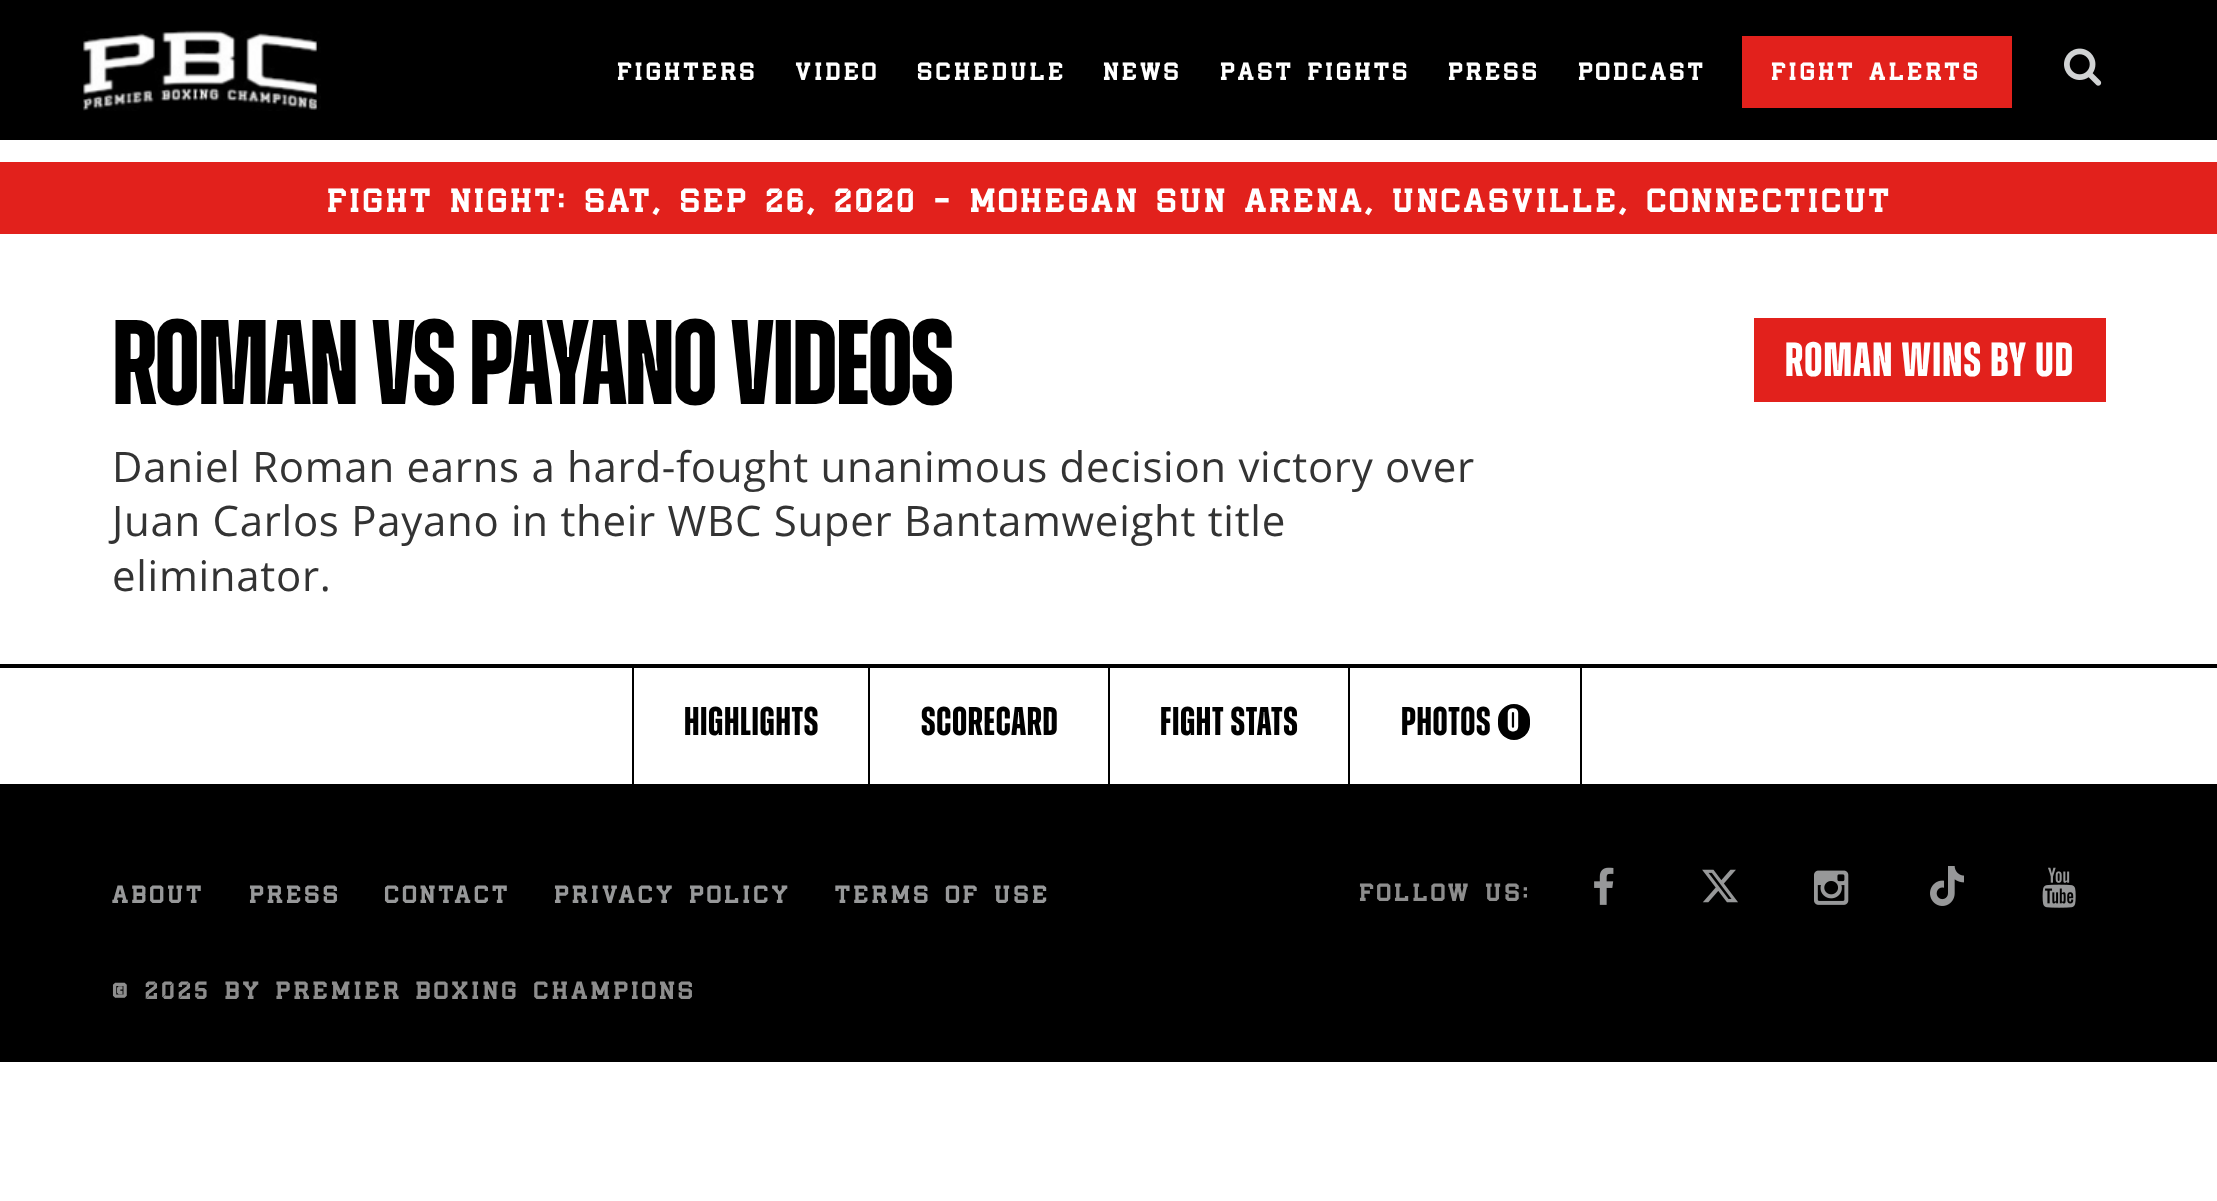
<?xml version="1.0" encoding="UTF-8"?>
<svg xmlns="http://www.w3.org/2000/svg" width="2217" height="1201">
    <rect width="100%" height="100%" fill="#FFFFFF"/>
    <rect x="0" y="0" width="2217" height="140" fill="#000000"/>
    <image x="83" y="30" width="238" height="81" href="img_01.png"/>
    <text x="617" y="80" font-family="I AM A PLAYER" font-size="24" font-weight="700" letter-spacing="4" fill="#FFFFFF">FIGHTERS</text>
    <text x="795" y="80" font-family="I AM A PLAYER" font-size="24" font-weight="700" letter-spacing="4" fill="#FFFFFF">VIDEO</text>
    <text x="917" y="80" font-family="I AM A PLAYER" font-size="24" font-weight="700" letter-spacing="4" fill="#FFFFFF">SCHEDULE</text>
    <text x="1103" y="80" font-family="I AM A PLAYER" font-size="24" font-weight="700" letter-spacing="4" fill="#FFFFFF">NEWS</text>
    <text x="1220" y="80" font-family="I AM A PLAYER" font-size="24" font-weight="700" letter-spacing="4" fill="#FFFFFF">PAST FIGHTS</text>
    <text x="1448" y="80" font-family="I AM A PLAYER" font-size="24" font-weight="700" letter-spacing="4" fill="#FFFFFF">PRESS</text>
    <text x="1578" y="80" font-family="I AM A PLAYER" font-size="24" font-weight="700" letter-spacing="4" fill="#FFFFFF">PODCAST</text>
    <rect x="1742" y="36" width="270" height="72" fill="#E2211C"/>
    <text x="1771" y="80" font-family="I AM A PLAYER" font-size="24" font-weight="700" letter-spacing="4" fill="#FFFFFF">FIGHT ALERTS</text>
    <image x="2064" y="48" width="38" height="38" href="img_02.png"/>
    <rect x="0" y="162" width="2217" height="72" fill="#E2211C"/>
    <text x="327" y="212" font-family="I AM A PLAYER" font-size="32" font-weight="700" letter-spacing="4" fill="#FFFFFF">FIGHT NIGHT: SAT, SEP 26, 2020 - MOHEGAN SUN ARENA, UNCASVILLE, CONNECTICUT</text>
    <text x="112" y="404" font-family="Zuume" font-size="120" font-weight="700" letter-spacing="-2.2" fill="#000000">ROMAN VS PAYANO VIDEOS</text>
    <rect x="1754" y="318" width="352" height="84" fill="#E2211C"/>
    <text x="1785" y="376" font-family="Zuume" font-size="48" font-weight="700" letter-spacing="1.25" fill="#FFFFFF">ROMAN WINS BY UD</text>
    <text font-family="Open Sans" font-size="42" letter-spacing="0.7" fill="#333333">
        <tspan x="112" y="482">Daniel Roman earns a hard-fought unanimous decision victory over</tspan>
        <tspan x="112" y="536">Juan Carlos Payano in their WBC Super Bantamweight title</tspan>
        <tspan x="112" y="591">eliminator.</tspan>
    </text>
    <rect x="0" y="664" width="2217" height="4" fill="#000000"/>
    <rect x="0" y="784" width="2217" height="278" fill="#000000"/>
    <rect x="632" y="668" width="2" height="116" fill="#000000"/>
    <text x="684" y="735" font-family="Zuume" font-size="40" font-weight="700" letter-spacing="0.7" fill="#000000">HIGHLIGHTS</text>
    <rect x="868" y="668" width="2" height="116" fill="#000000"/>
    <text x="921" y="735" font-family="Zuume" font-size="40" font-weight="700" letter-spacing="0.7" fill="#000000">SCORECARD</text>
    <rect x="1108" y="668" width="2" height="116" fill="#000000"/>
    <text x="1160" y="735" font-family="Zuume" font-size="40" font-weight="700" letter-spacing="0.7" fill="#000000">FIGHT STATS</text>
    <rect x="1580" y="668" width="2" height="116" fill="#000000"/>
    <rect x="1348" y="668" width="2" height="116" fill="#000000"/>
    <text x="1401" y="735" font-family="Zuume" font-size="40" font-weight="700" letter-spacing="0.7" fill="#000000">PHOTOS</text>
    <rect x="1498" y="704" width="32" height="36" rx="16" fill="#000000"/>
    <text x="1507" y="731" font-family="Zuume" font-size="32" font-weight="700" letter-spacing="0.7" fill="#FFFFFF">0</text>
    <text x="112" y="903" font-family="I AM A PLAYER" font-size="24" font-weight="700" letter-spacing="4" fill="#979899">ABOUT</text>
    <text x="249" y="903" font-family="I AM A PLAYER" font-size="24" font-weight="700" letter-spacing="4" fill="#979899">PRESS</text>
    <text x="384" y="903" font-family="I AM A PLAYER" font-size="24" font-weight="700" letter-spacing="4" fill="#979899">CONTACT</text>
    <text x="554" y="903" font-family="I AM A PLAYER" font-size="24" font-weight="700" letter-spacing="4" fill="#979899">PRIVACY POLICY</text>
    <text x="835" y="903" font-family="I AM A PLAYER" font-size="24" font-weight="700" letter-spacing="4" fill="#979899">TERMS OF USE</text>
    <text x="1359" y="901" font-family="I AM A PLAYER" font-size="24" font-weight="700" letter-spacing="4" fill="#8D8D8D">FOLLOW US:</text>
    <image x="1594" y="867" width="20" height="38" href="img_03.png"/>
    <image x="1702" y="869" width="36" height="34" href="img_04.png"/>
    <image x="1814" y="870" width="35" height="35" href="img_05.png"/>
    <image x="1930" y="866" width="34" height="40" href="img_06.png"/>
    <image x="2042" y="867" width="34" height="41" href="img_07.png"/>
    <text x="112" y="999" font-family="I AM A PLAYER" font-size="24" font-weight="700" letter-spacing="4" fill="#8D8D8D">© 2025 BY PREMIER BOXING CHAMPIONS</text>
</svg>
